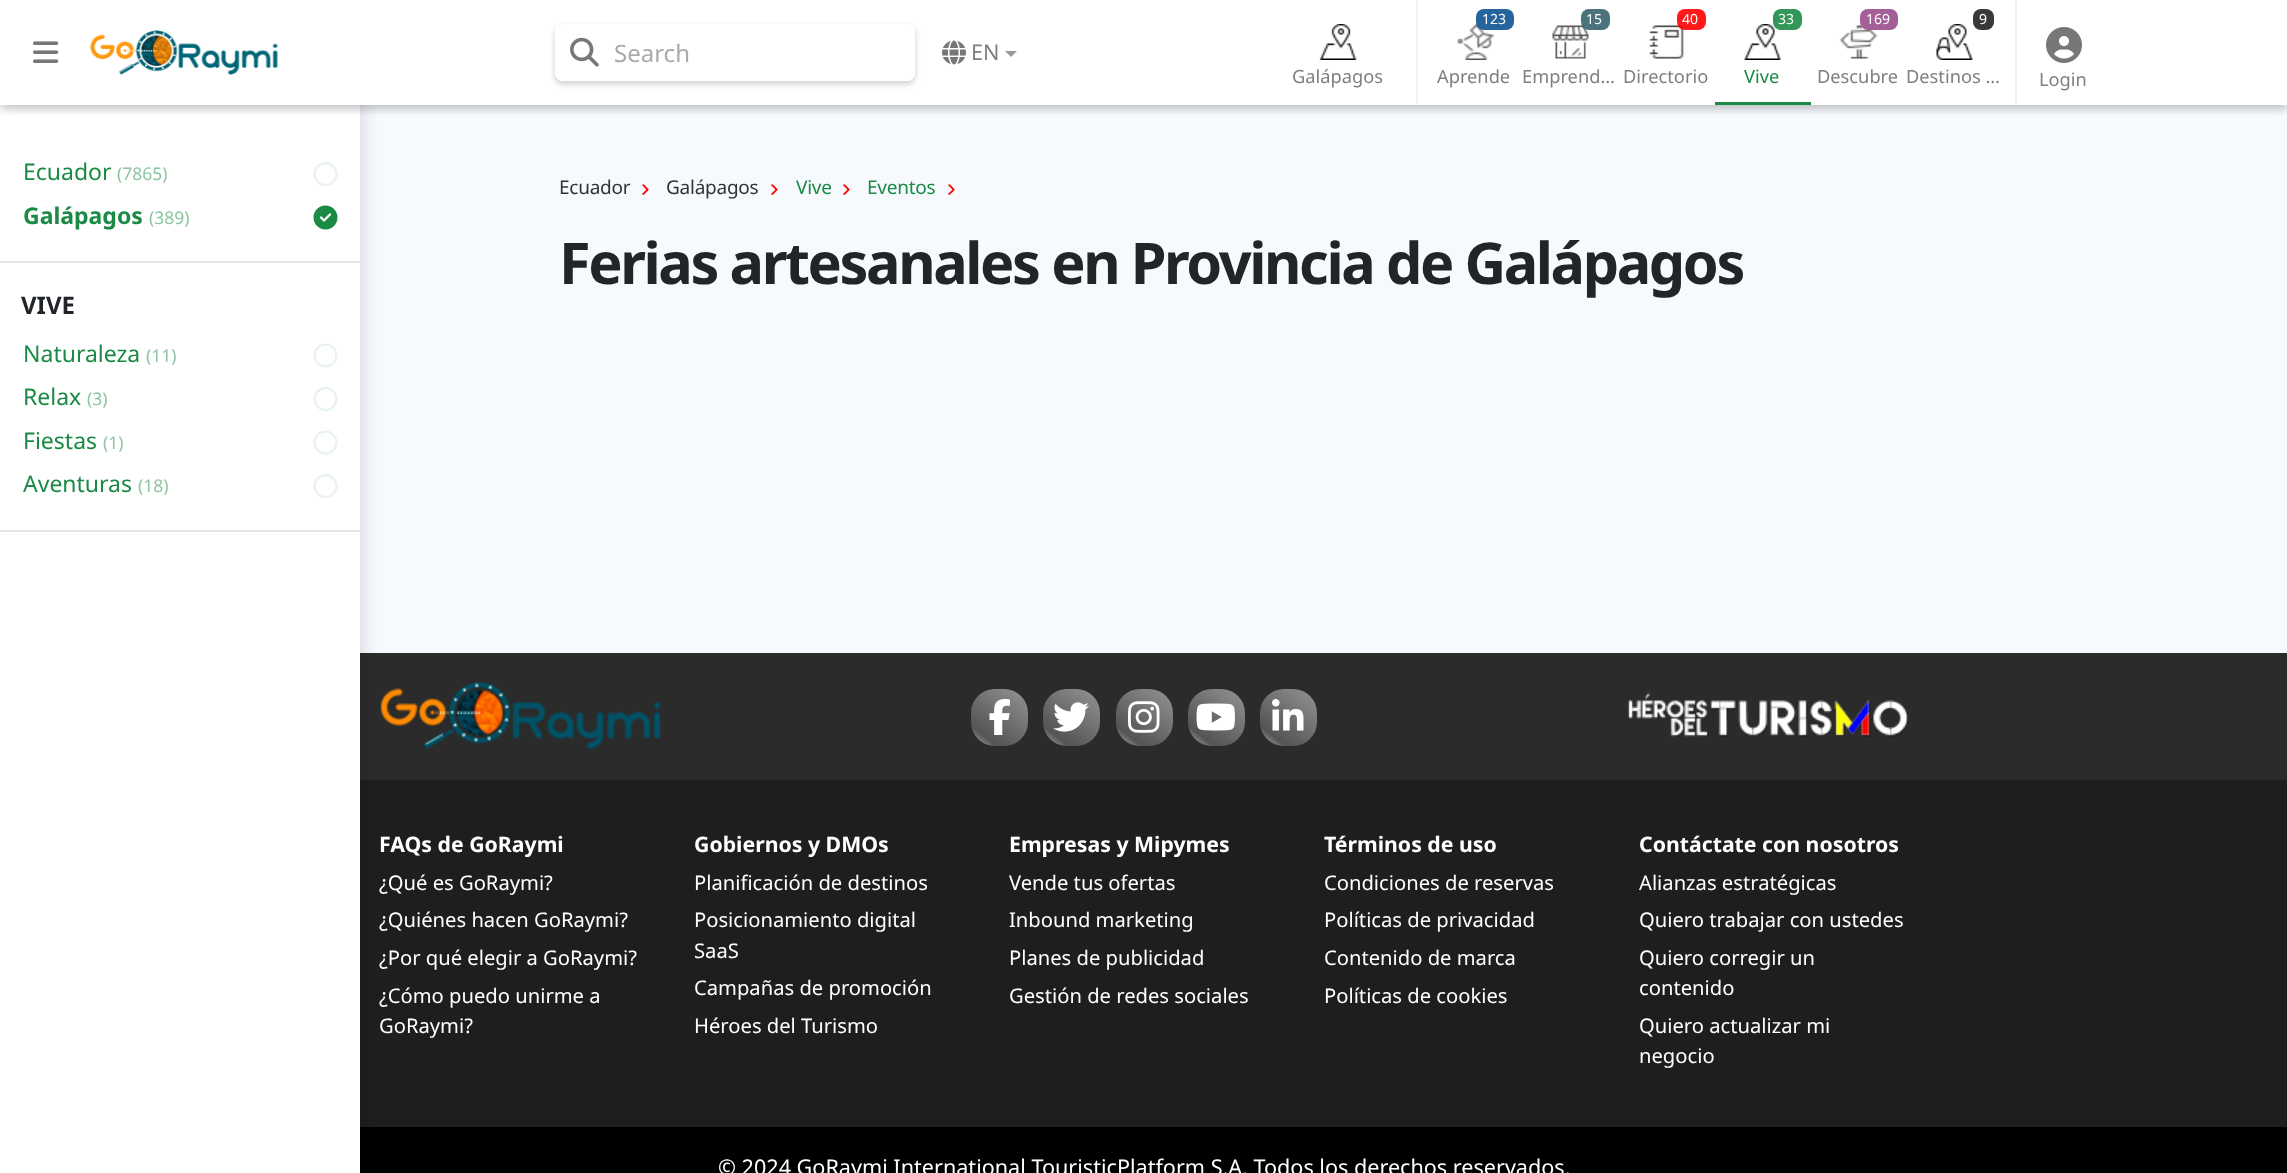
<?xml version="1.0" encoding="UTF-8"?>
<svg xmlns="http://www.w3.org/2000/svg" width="2287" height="1173">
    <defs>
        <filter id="blur1" x="-50%" y="-200%" width="200%" height="500%"><feGaussianBlur stdDeviation="7.5"/></filter>
        <clipPath id="clip1"><rect x="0" y="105" width="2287" height="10"/></clipPath>
        <clipPath id="clip2"><rect x="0" y="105" width="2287" height="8"/></clipPath>
        <filter id="blur2" x="-50%" y="-200%" width="200%" height="500%"><feGaussianBlur stdDeviation="4"/></filter>
        <clipPath id="clip3"><path d="M 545 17 H 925 V 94 H 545 Z M 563 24 H 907 C 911.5 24 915 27.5 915 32 V 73 C 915 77.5 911.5 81 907 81 H 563 C 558.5 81 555 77.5 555 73 V 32 C 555 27.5 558.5 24 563 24 Z" clip-rule="evenodd"/></clipPath>
        <filter id="blur3" x="-50%" y="-200%" width="200%" height="500%"><feGaussianBlur stdDeviation="3"/></filter>
        <linearGradient id="g1" gradientUnits="userSpaceOnUse" x1="1023" y1="685" x2="975" y2="749"><stop offset="0" stop-color="#959595"/><stop offset="0.8" stop-color="#545454"/><stop offset="1" stop-color="#B5B5B5"/></linearGradient>
        <linearGradient id="g2" gradientUnits="userSpaceOnUse" x1="1095" y1="685" x2="1047" y2="749"><stop offset="0" stop-color="#959595"/><stop offset="0.8" stop-color="#545454"/><stop offset="1" stop-color="#B5B5B5"/></linearGradient>
        <linearGradient id="g3" gradientUnits="userSpaceOnUse" x1="1169" y1="685" x2="1120" y2="749"><stop offset="0" stop-color="#959595"/><stop offset="0.8" stop-color="#545454"/><stop offset="1" stop-color="#B5B5B5"/></linearGradient>
        <linearGradient id="g4" gradientUnits="userSpaceOnUse" x1="1241" y1="685" x2="1192" y2="749"><stop offset="0" stop-color="#959595"/><stop offset="0.8" stop-color="#545454"/><stop offset="1" stop-color="#B5B5B5"/></linearGradient>
        <linearGradient id="g5" gradientUnits="userSpaceOnUse" x1="1313" y1="685" x2="1264" y2="749"><stop offset="0" stop-color="#959595"/><stop offset="0.8" stop-color="#545454"/><stop offset="1" stop-color="#B5B5B5"/></linearGradient>
    </defs>
    <rect width="100%" height="100%" fill="#F6F9FE"/>
    <rect x="360" y="653" width="1927" height="127" fill="#2B2B2B"/>
    <image x="380" y="682" width="281" height="67" href="img_17.png"/>
    <rect x="360" y="780" width="1927" height="347" fill="#1E1E1E"/>
    <rect x="360" y="1127" width="1927" height="46" fill="#000000"/>
    <rect x="5" y="5" width="360" height="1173" fill="#000000" fill-opacity="0.1" filter="url(#blur1)"/>
    <rect x="0" y="0" width="360" height="1173" fill="#FFFFFF"/>
    <g clip-path="url(#clip1)">
        <rect x="0" y="3" width="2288" height="105" fill="#000000" fill-opacity="0.12" filter="url(#blur1)"/>
    </g>
    <g clip-path="url(#clip2)">
        <rect x="0" y="3" width="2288" height="105" fill="#000000" fill-opacity="0.16" filter="url(#blur2)"/>
    </g>
    <rect x="360" y="0" width="1927" height="105" fill="#FFFFFF" fill-opacity="0.99"/>
    <image x="33" y="41" width="26" height="22" href="img_01.png"/>
    <image x="90" y="30" width="188" height="45" href="img_02.png"/>
    <g clip-path="url(#clip3)">
        <rect x="555" y="27" width="360" height="57" rx="8" fill="#000000" fill-opacity="0.2" filter="url(#blur3)"/>
    </g>
    <rect x="555" y="24" width="360" height="57" rx="8" fill="#FFFFFF" fill-opacity="0.9"/>
    <image x="570" y="37" width="29" height="30" href="img_03.png"/>
    <text x="614" y="62" font-family="Noto Sans" font-size="24" fill="#AAAAAA">Search</text>
    <image x="942" y="40" width="24" height="25" href="img_04.png"/>
    <text x="971" y="60" font-family="Noto Sans" font-size="21.6" fill="#7F7F7F">EN</text>
    <path d="M 1005 51 H 1017 L 1011 57 Z" fill="#999999"/>
    <rect x="1416" y="0" width="2" height="105" fill="#F2F2F2"/>
    <image x="1319" y="24" width="38" height="36" href="img_05.png"/>
    <text x="1292" y="83" font-family="Noto Sans" font-size="18.25" fill="#7F7F7F">Galápagos</text>
    <image x="1457" y="24" width="38" height="36" href="img_06.png"/>
    <rect x="1476" y="9" width="38" height="21" rx="8" fill="#0E5392" fill-opacity="0.9"/>
    <text x="1482" y="24" font-family="Noto Sans" font-size="14" fill="#FFFFFF">123</text>
    <text x="1437" y="83" font-family="Noto Sans" font-size="18.25" fill="#7F7F7F">Aprende</text>
    <image x="1552" y="25" width="37" height="34" href="img_07.png"/>
    <rect x="1581" y="9" width="29" height="21" rx="8" fill="#36646E" fill-opacity="0.9"/>
    <text x="1586" y="24" font-family="Noto Sans" font-size="14" fill="#FFFFFF">15</text>
    <text x="1522" y="83" font-family="Noto Sans" font-size="18.25" fill="#7F7F7F">Emprend…</text>
    <image x="1649" y="25" width="35" height="34" href="img_08.png"/>
    <rect x="1677" y="9" width="29" height="21" rx="8" fill="#FF0000" fill-opacity="0.9"/>
    <text x="1682" y="24" font-family="Noto Sans" font-size="14" fill="#FFFFFF">40</text>
    <text x="1623" y="83" font-family="Noto Sans" font-size="18.25" fill="#7F7F7F">Directorio</text>
    <rect x="1715" y="102" width="96" height="3" fill="#1A8A44"/>
    <image x="1744" y="24" width="37" height="36" href="img_09.png"/>
    <rect x="1773" y="9" width="29" height="21" rx="8" fill="#319657"/>
    <text x="1778" y="24" font-family="Noto Sans" font-size="14" fill="#FFFFFF">33</text>
    <text x="1744" y="83" font-family="Noto Sans" font-size="18.25" fill="#1A8A44">Vive</text>
    <image x="1839" y="25" width="39" height="34" href="img_10.png"/>
    <rect x="1860" y="9" width="38" height="21" rx="8" fill="#9B4E8D" fill-opacity="0.9"/>
    <text x="1866" y="24" font-family="Noto Sans" font-size="14" fill="#FFFFFF">169</text>
    <text x="1817" y="83" font-family="Noto Sans" font-size="18.25" fill="#7F7F7F">Descubre</text>
    <rect x="1973" y="9" width="21" height="21" rx="8" fill="#393939"/>
    <text x="1979" y="24" font-family="Noto Sans" font-size="14" fill="#FFFFFF">9</text>
    <image x="1936" y="24" width="37" height="36" href="img_11.png"/>
    <text x="1906" y="83" font-family="Noto Sans" font-size="18.25" fill="#7F7F7F">Destinos …</text>
    <rect x="2015" y="0" width="2" height="105" fill="#F2F2F2"/>
    <image x="2046" y="27" width="36" height="36" href="img_12.png"/>
    <text x="2039" y="86" font-family="Noto Sans" font-size="18.25" fill="#7F7F7F">Login</text>
    <text x="23" y="180" font-family="Noto Sans" font-size="23" fill="#1A8A44">Ecuador</text>
    <text x="117" y="180" font-family="Noto Sans" font-size="17.5" fill="#8DC5A2">(7865)</text>
    <image x="313" y="162" width="25" height="24" href="img_13.png"/>
    <text x="23" y="224" font-family="Noto Sans" font-size="23" font-weight="700" fill="#1A8A44">Galápagos</text>
    <text x="149" y="224" font-family="Noto Sans" font-size="17.5" fill="#8DC5A2">(389)</text>
    <image x="313" y="205" width="25" height="25" href="img_14.png"/>
    <rect x="0" y="261" width="360" height="2" fill="#E6E6E6"/>
    <text x="21" y="314" font-family="Noto Sans" font-size="24" font-weight="700" fill="#212529">VIVE</text>
    <text x="23" y="362" font-family="Noto Sans" font-size="23" fill="#1A8A44">Naturaleza</text>
    <text x="146" y="362" font-family="Noto Sans" font-size="17.5" fill="#8DC5A2">(11)</text>
    <image x="313" y="343" width="25" height="25" href="img_15.png"/>
    <text x="23" y="405" font-family="Noto Sans" font-size="23" fill="#1A8A44">Relax</text>
    <text x="87" y="405" font-family="Noto Sans" font-size="17.5" fill="#8DC5A2">(3)</text>
    <image x="313" y="387" width="25" height="24" href="img_13.png"/>
    <text x="23" y="449" font-family="Noto Sans" font-size="23" fill="#1A8A44">Fiestas</text>
    <text x="103" y="449" font-family="Noto Sans" font-size="17.5" fill="#8DC5A2">(1)</text>
    <image x="313" y="430" width="25" height="25" href="img_15.png"/>
    <text x="23" y="492" font-family="Noto Sans" font-size="23" fill="#1A8A44">Aventuras</text>
    <text x="138" y="492" font-family="Noto Sans" font-size="17.5" fill="#8DC5A2">(18)</text>
    <image x="313" y="474" width="25" height="24" href="img_13.png"/>
    <rect x="0" y="530" width="360" height="2" fill="#E6E6E6"/>
    <text x="559" y="194" font-family="Noto Sans" font-size="19" letter-spacing="-0.25" fill="#333333">Ecuador</text>
    <image x="642" y="184" width="7" height="11" href="img_16.png"/>
    <text x="666" y="194" font-family="Noto Sans" font-size="19" letter-spacing="-0.25" fill="#333333">Galápagos</text>
    <image x="771" y="184" width="7" height="11" href="img_16.png"/>
    <text x="796" y="194" font-family="Noto Sans" font-size="19" letter-spacing="-0.25" fill="#1A8A44">Vive</text>
    <image x="843" y="184" width="7" height="11" href="img_16.png"/>
    <text x="867" y="194" font-family="Noto Sans" font-size="19" letter-spacing="-0.25" fill="#1A8A44">Eventos</text>
    <image x="948" y="184" width="7" height="11" href="img_16.png"/>
    <text x="559" y="284" font-family="Noto Sans" font-size="57.6" font-weight="700" letter-spacing="-2.4" fill="#212529">Ferias artesanales en Provincia de Galápagos</text>
    <rect x="971" y="689" width="57" height="57" rx="24" fill="url(#g1)"/>
    <image x="989" y="699" width="21" height="36" href="img_18.png"/>
    <rect x="1043" y="689" width="57" height="57" rx="24" fill="url(#g2)"/>
    <image x="1053" y="702" width="36" height="30" href="img_19.png"/>
    <rect x="1116" y="689" width="57" height="57" rx="24" fill="url(#g3)"/>
    <image x="1128" y="701" width="32" height="32" href="img_20.png"/>
    <rect x="1188" y="689" width="57" height="57" rx="24" fill="url(#g4)"/>
    <image x="1196" y="703" width="39" height="28" href="img_21.png"/>
    <rect x="1260" y="689" width="57" height="57" rx="24" fill="url(#g5)"/>
    <image x="1272" y="699" width="32" height="32" href="img_22.png"/>
    <image x="1627" y="692" width="282" height="45" href="img_23.png"/>
    <text x="379" y="852" font-family="Noto Sans" font-size="21.25" font-weight="700" fill="#FFFFFF">FAQs de GoRaymi</text>
    <text font-family="Noto Sans" font-size="20.2" fill="#FFFFFF">
        <tspan x="379" y="890">¿Qué es GoRaymi?</tspan>
        <tspan x="379" y="927">¿Quiénes hacen GoRaymi?</tspan>
        <tspan x="379" y="965">¿Por qué elegir a GoRaymi?</tspan>
        <tspan x="379" y="1003">¿Cómo puedo unirme a</tspan>
        <tspan x="379" y="1033">GoRaymi?</tspan>
    </text>
    <text x="694" y="852" font-family="Noto Sans" font-size="21.25" font-weight="700" fill="#FFFFFF">Gobiernos y DMOs</text>
    <text font-family="Noto Sans" font-size="20.2" fill="#FFFFFF">
        <tspan x="694" y="890">Planificación de destinos</tspan>
        <tspan x="694" y="927">Posicionamiento digital</tspan>
        <tspan x="694" y="958">SaaS</tspan>
        <tspan x="694" y="995">Campañas de promoción</tspan>
        <tspan x="694" y="1033">Héroes del Turismo</tspan>
    </text>
    <text x="1009" y="852" font-family="Noto Sans" font-size="21.25" font-weight="700" fill="#FFFFFF">Empresas y Mipymes</text>
    <text font-family="Noto Sans" font-size="20.2" fill="#FFFFFF">
        <tspan x="1009" y="890">Vende tus ofertas</tspan>
        <tspan x="1009" y="927">Inbound marketing</tspan>
        <tspan x="1009" y="965">Planes de publicidad</tspan>
        <tspan x="1009" y="1003">Gestión de redes sociales</tspan>
    </text>
    <text x="1324" y="852" font-family="Noto Sans" font-size="21.25" font-weight="700" fill="#FFFFFF">Términos de uso</text>
    <text font-family="Noto Sans" font-size="20.2" fill="#FFFFFF">
        <tspan x="1324" y="890">Condiciones de reservas</tspan>
        <tspan x="1324" y="927">Políticas de privacidad</tspan>
        <tspan x="1324" y="965">Contenido de marca</tspan>
        <tspan x="1324" y="1003">Políticas de cookies</tspan>
    </text>
    <text x="1639" y="852" font-family="Noto Sans" font-size="21.25" font-weight="700" fill="#FFFFFF">Contáctate con nosotros</text>
    <text font-family="Noto Sans" font-size="20.2" fill="#FFFFFF">
        <tspan x="1639" y="890">Alianzas estratégicas</tspan>
        <tspan x="1639" y="927">Quiero trabajar con ustedes</tspan>
        <tspan x="1639" y="965">Quiero corregir un</tspan>
        <tspan x="1639" y="995">contenido</tspan>
        <tspan x="1639" y="1033">Quiero actualizar mi</tspan>
        <tspan x="1639" y="1063">negocio</tspan>
    </text>
    <text x="718" y="1175" font-family="Noto Sans" font-size="21.6" fill="#FFFFFF">© 2024 GoRaymi International TouristicPlatform S.A. Todos los derechos reservados.</text>
</svg>
